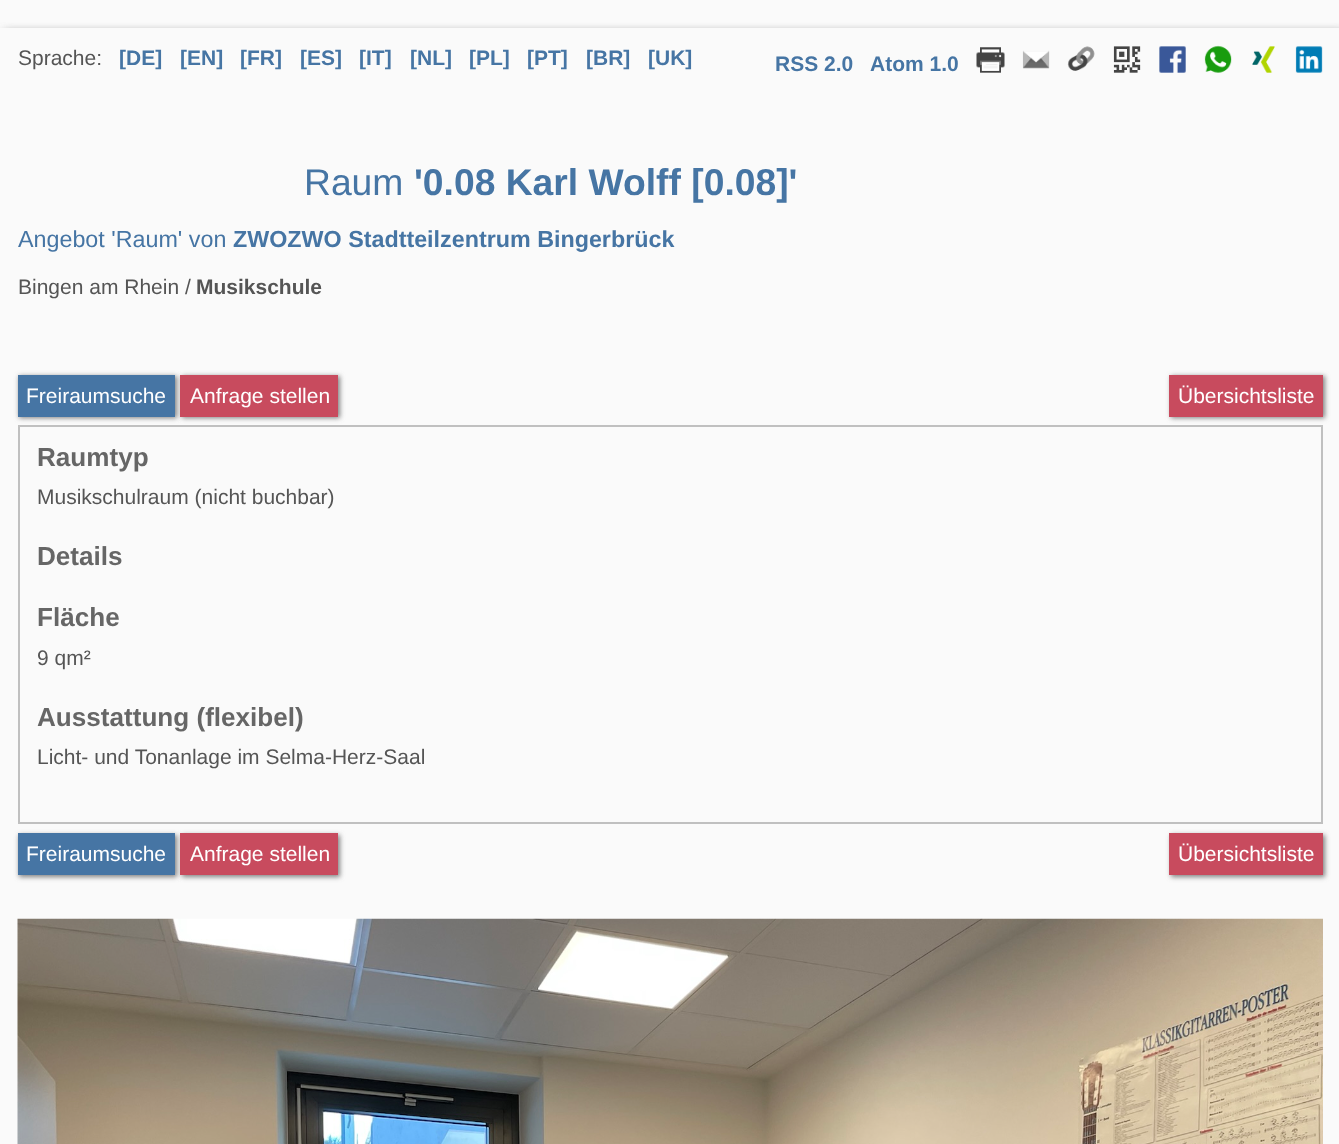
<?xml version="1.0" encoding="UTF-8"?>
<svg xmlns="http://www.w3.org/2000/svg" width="1339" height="1144">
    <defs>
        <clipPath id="clip1"><rect x="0" y="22" width="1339" height="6"/></clipPath>
        <filter id="blur1" x="-50%" y="-200%" width="200%" height="500%"><feGaussianBlur stdDeviation="5"/></filter>
        <filter id="blur2" x="-50%" y="-200%" width="200%" height="500%"><feGaussianBlur stdDeviation="2.5"/></filter>
    </defs>
    <rect width="100%" height="100%" fill="#FAFAFA"/>
    <g clip-path="url(#clip1)">
        <rect x="4" y="32" width="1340" height="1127" fill="#808080" filter="url(#blur1)"/>
    </g>
    <text x="18" y="65" font-family="Liberation Sans" font-size="21" fill="#555555">Sprache:</text>
    <text x="119" y="65" font-family="Liberation Sans" font-size="21" font-weight="700" fill="#4675A4">[DE]</text>
    <text x="180" y="65" font-family="Liberation Sans" font-size="21" font-weight="700" fill="#4675A4">[EN]</text>
    <text x="240" y="65" font-family="Liberation Sans" font-size="21" font-weight="700" fill="#4675A4">[FR]</text>
    <text x="300" y="65" font-family="Liberation Sans" font-size="21" font-weight="700" fill="#4675A4">[ES]</text>
    <text x="359" y="65" font-family="Liberation Sans" font-size="21" font-weight="700" fill="#4675A4">[IT]</text>
    <text x="410" y="65" font-family="Liberation Sans" font-size="21" font-weight="700" fill="#4675A4">[NL]</text>
    <text x="469" y="65" font-family="Liberation Sans" font-size="21" font-weight="700" fill="#4675A4">[PL]</text>
    <text x="527" y="65" font-family="Liberation Sans" font-size="21" font-weight="700" fill="#4675A4">[PT]</text>
    <text x="586" y="65" font-family="Liberation Sans" font-size="21" font-weight="700" fill="#4675A4">[BR]</text>
    <text x="648" y="65" font-family="Liberation Sans" font-size="21" font-weight="700" fill="#4675A4">[UK]</text>
    <text x="775" y="71" font-family="Liberation Sans" font-size="21" font-weight="700" fill="#4675A4">RSS 2.0</text>
    <text x="870" y="71" font-family="Liberation Sans" font-size="21" font-weight="700" fill="#4675A4">Atom 1.0</text>
    <image x="976" y="47" width="29" height="26" href="img_01.png"/>
    <image x="1022" y="50" width="28" height="19" href="img_02.png"/>
    <image x="1067" y="46" width="28" height="25" href="img_03.png"/>
    <image x="1113" y="46" width="28" height="27" href="img_04.png"/>
    <image x="1159" y="46" width="27" height="27" href="img_05.png"/>
    <image x="1204" y="45" width="28" height="28" href="img_06.png"/>
    <image x="1252" y="46" width="23" height="27" href="img_07.png"/>
    <image x="1295" y="46" width="28" height="27" href="img_08.png"/>
    <text x="304" y="195" font-family="Liberation Sans" font-size="37.25" fill="#4675A4">Raum</text>
    <text x="414" y="195" font-family="Liberation Sans" font-size="37.25" font-weight="700" fill="#4675A4">'0.08 Karl Wolff [0.08]'</text>
    <text x="18" y="247" font-family="Liberation Sans" font-size="23.3" fill="#4675A4">Angebot 'Raum' von</text>
    <text x="233" y="247" font-family="Liberation Sans" font-size="23.3" font-weight="700" fill="#4675A4">ZWOZWO Stadtteilzentrum Bingerbrück</text>
    <text x="18" y="294" font-family="Liberation Sans" font-size="21" fill="#555555">Bingen am Rhein /</text>
    <text x="196" y="294" font-family="Liberation Sans" font-size="21" font-weight="700" fill="#555555">Musikschule</text>
    <rect x="19" y="426" width="1303" height="397" fill="none" stroke="#C0C0C0" stroke-width="2"/>
    <rect x="19" y="376" width="158" height="42" fill="#808080" filter="url(#blur2)"/>
    <rect x="18" y="375" width="157" height="42" fill="#4675A4"/>
    <text x="26" y="403" font-family="Liberation Sans" font-size="21" fill="#FFFFFF">Freiraumsuche</text>
    <rect x="182" y="376" width="158" height="42" fill="#808080" filter="url(#blur2)"/>
    <rect x="180" y="375" width="158" height="42" fill="#C84B5E"/>
    <text x="190" y="403" font-family="Liberation Sans" font-size="21" fill="#FFFFFF">Anfrage stellen</text>
    <rect x="1171" y="376" width="154" height="42" fill="#808080" filter="url(#blur2)"/>
    <rect x="1169" y="375" width="154" height="42" fill="#C84B5E"/>
    <text x="1178" y="403" font-family="Liberation Sans" font-size="21" fill="#FFFFFF">Übersichtsliste</text>
    <text x="37" y="466" font-family="Liberation Sans" font-size="26.1" font-weight="700" fill="#666666">Raumtyp</text>
    <text x="37" y="504" font-family="Liberation Sans" font-size="21" fill="#555555">Musikschulraum (nicht buchbar)</text>
    <text x="37" y="565" font-family="Liberation Sans" font-size="26.1" font-weight="700" fill="#666666">Details</text>
    <text x="37" y="626" font-family="Liberation Sans" font-size="26.1" font-weight="700" fill="#666666">Fläche</text>
    <text x="37" y="665" font-family="Liberation Sans" font-size="21" fill="#555555">9 qm²</text>
    <text x="37" y="726" font-family="Liberation Sans" font-size="26.1" font-weight="700" fill="#666666">Ausstattung (flexibel)</text>
    <text x="37" y="764" font-family="Liberation Sans" font-size="21" fill="#555555">Licht- und Tonanlage im Selma-Herz-Saal</text>
    <rect x="19" y="835" width="158" height="42" fill="#808080" filter="url(#blur2)"/>
    <rect x="18" y="833" width="157" height="42" fill="#4675A4"/>
    <text x="26" y="861" font-family="Liberation Sans" font-size="21" fill="#FFFFFF">Freiraumsuche</text>
    <rect x="182" y="835" width="158" height="42" fill="#808080" filter="url(#blur2)"/>
    <rect x="180" y="833" width="158" height="42" fill="#C84B5E"/>
    <text x="190" y="861" font-family="Liberation Sans" font-size="21" fill="#FFFFFF">Anfrage stellen</text>
    <rect x="1171" y="835" width="154" height="42" fill="#808080" filter="url(#blur2)"/>
    <rect x="1169" y="833" width="154" height="42" fill="#C84B5E"/>
    <text x="1178" y="861" font-family="Liberation Sans" font-size="21" fill="#FFFFFF">Übersichtsliste</text>
    <image x="17" y="918" width="1306" height="226" href="img_09.png"/>
</svg>
